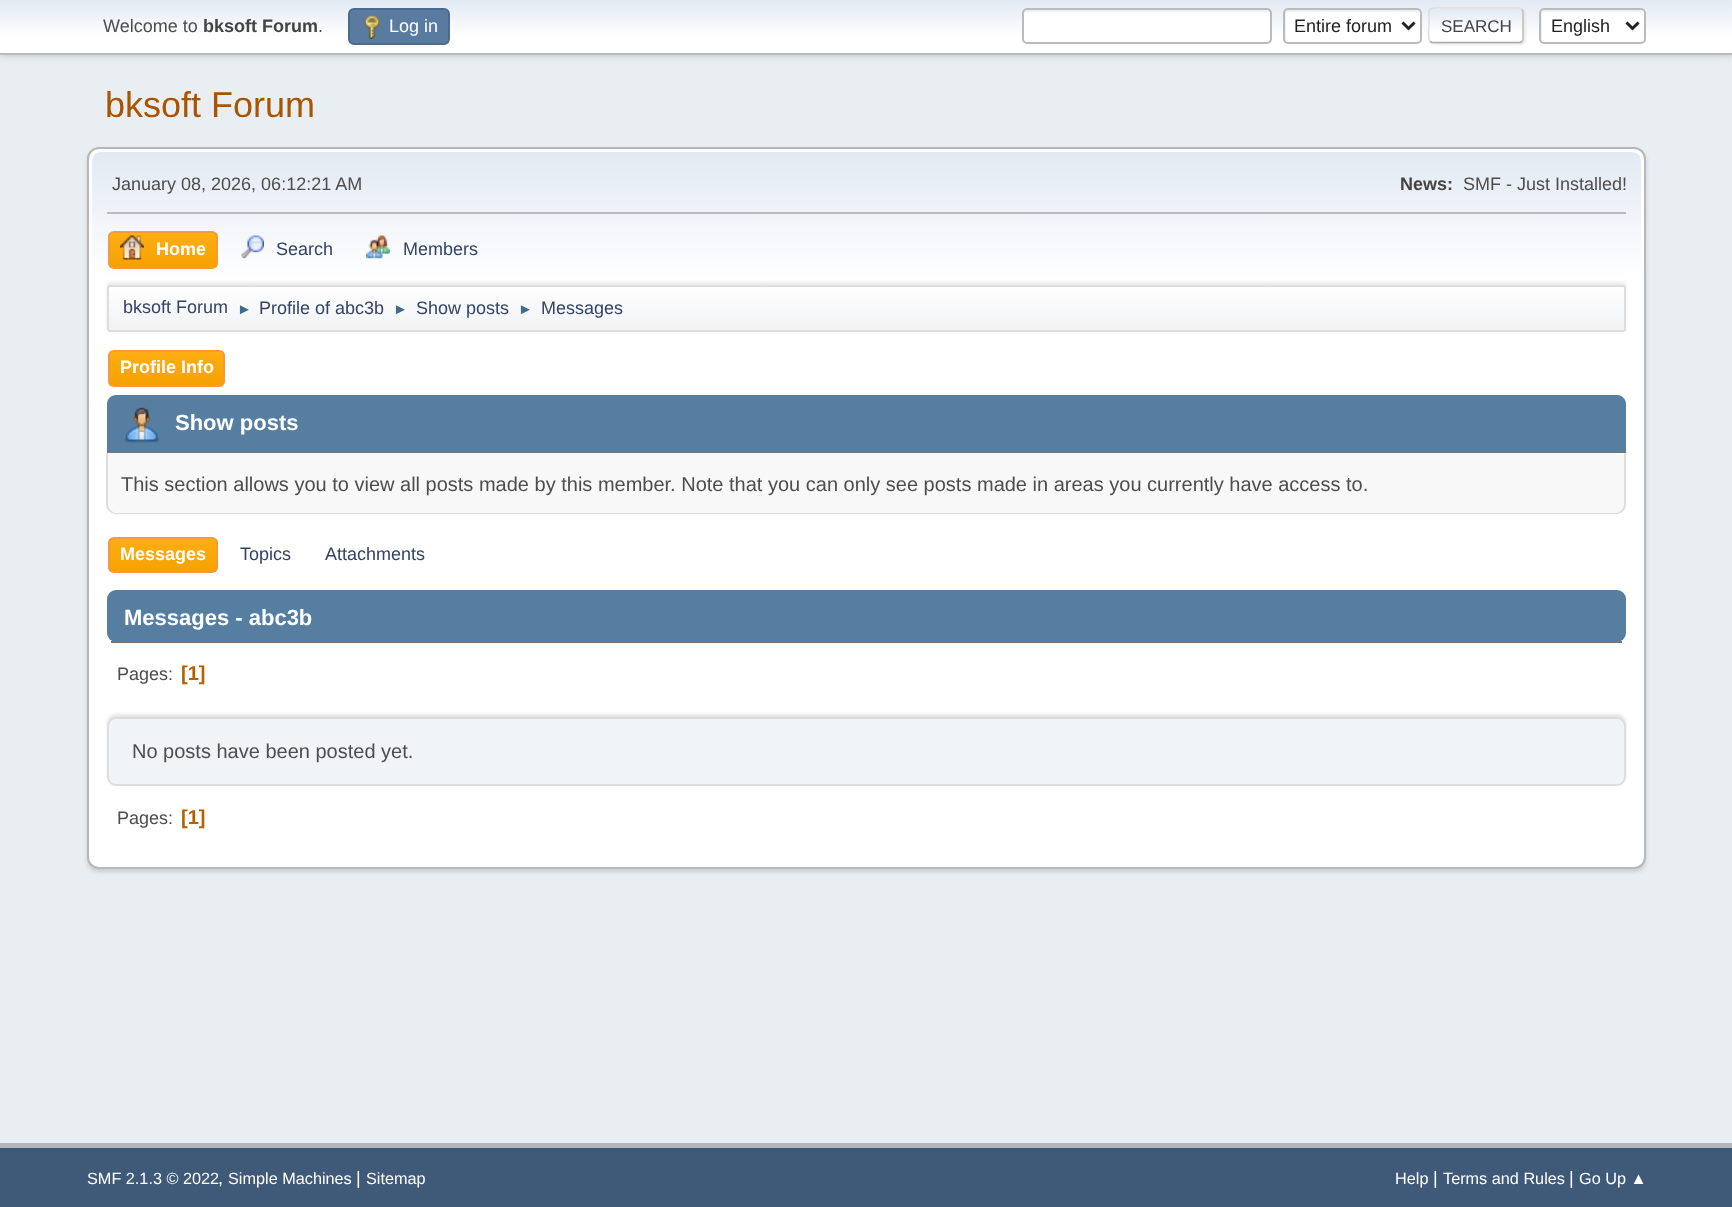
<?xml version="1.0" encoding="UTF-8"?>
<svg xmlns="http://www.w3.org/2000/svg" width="1732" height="1207">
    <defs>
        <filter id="blur1" x="-50%" y="-200%" width="200%" height="500%"><feGaussianBlur stdDeviation="3"/></filter>
        <linearGradient id="g1" gradientUnits="userSpaceOnUse" x1="866" y1="0" x2="866" y2="53"><stop offset="0" stop-color="#E2E9F3"/><stop offset="0.7" stop-color="#FFFFFF"/></linearGradient>
        <filter id="blur2" x="-50%" y="-200%" width="200%" height="500%"><feGaussianBlur stdDeviation="1"/></filter>
        <clipPath id="clip1"><rect x="1428" y="8" width="96" height="36" rx="5"/></clipPath>
        <linearGradient id="g2" gradientUnits="userSpaceOnUse" x1="1476" y1="-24" x2="1476" y2="9"><stop offset="0" stop-color="#E2E9F3"/><stop offset="0.7" stop-color="#FFFFFF"/></linearGradient>
        <linearGradient id="g3" gradientUnits="userSpaceOnUse" x1="1476" y1="9" x2="1476" y2="42"><stop offset="0" stop-color="#E2E9F3"/><stop offset="0.7" stop-color="#FFFFFF"/></linearGradient>
        <linearGradient id="g4" gradientUnits="userSpaceOnUse" x1="1476" y1="42" x2="1476" y2="75"><stop offset="0" stop-color="#E2E9F3"/><stop offset="0.7" stop-color="#FFFFFF"/></linearGradient>
        <filter id="blur3" x="-50%" y="-200%" width="200%" height="500%"><feGaussianBlur stdDeviation="2"/></filter>
        <linearGradient id="g5" gradientUnits="userSpaceOnUse" x1="866" y1="151" x2="866" y2="335"><stop offset="0" stop-color="#E2E9F3"/><stop offset="0.7" stop-color="#FFFFFF"/></linearGradient>
        <clipPath id="clip2"><rect x="108" y="231" width="110" height="38" rx="6"/></clipPath>
        <linearGradient id="g6" gradientUnits="userSpaceOnUse" x1="163" y1="233" x2="163" y2="267"><stop offset="0" stop-color="#FFAE14"/><stop offset="1" stop-color="#F5A100"/></linearGradient>
        <filter id="blur4" x="-50%" y="-200%" width="200%" height="500%"><feGaussianBlur stdDeviation="1.5"/></filter>
        <clipPath id="clip3"><rect x="107" y="285" width="1519" height="47" rx="3"/></clipPath>
        <linearGradient id="g7" gradientUnits="userSpaceOnUse" x1="866" y1="286" x2="866" y2="330"><stop offset="0" stop-color="#FFFFFF"/><stop offset="0.95" stop-color="#F1F3F5"/></linearGradient>
        <clipPath id="clip4"><rect x="108" y="350" width="117" height="37" rx="6"/></clipPath>
        <linearGradient id="g8" gradientUnits="userSpaceOnUse" x1="167" y1="351" x2="167" y2="386"><stop offset="0" stop-color="#FFAE14"/><stop offset="1" stop-color="#F5A100"/></linearGradient>
        <clipPath id="clip5"><rect x="108" y="537" width="110" height="36" rx="6"/></clipPath>
        <linearGradient id="g9" gradientUnits="userSpaceOnUse" x1="163" y1="539" x2="163" y2="572"><stop offset="0" stop-color="#FFAE14"/><stop offset="1" stop-color="#F5A100"/></linearGradient>
    </defs>
    <rect width="100%" height="100%" fill="#E9EEF2"/>
    <rect x="0" y="2" width="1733" height="54" fill="#000000" fill-opacity="0.16" filter="url(#blur1)"/>
    <rect x="0" y="0" width="1732" height="53" fill="url(#g1)"/>
    <rect x="0" y="53" width="1732" height="2" fill="#BBBBBB"/>
    <text x="103" y="32" font-family="Liberation Sans" font-size="18" fill="#4D4D4D">Welcome to</text>
    <text x="203" y="32" font-family="Liberation Sans" font-size="18" font-weight="700" fill="#444444">bksoft Forum</text>
    <text x="318" y="32" font-family="Liberation Sans" font-size="18" fill="#4D4D4D">.</text>
    <rect x="349" y="9" width="100" height="35" rx="5" fill="#597B9F" stroke="#4A6B8C" stroke-width="2"/>
    <image x="364" y="15" width="16" height="24" href="img_01.png"/>
    <text x="389" y="32" font-family="Liberation Sans" font-size="18" fill="#FFFFFF">Log in</text>
    <rect x="1022" y="8" width="250" height="36" rx="5" fill="#FFFFFF"/>
    <path d="M 1028 12 H 1269 L 1271 13 V 12 C 1271 10 1270 9 1268 9 H 1026 C 1024 9 1023 10 1023 12 V 39 C 1023 40 1023 41 1024 41 V 15 C 1024 13 1026 12 1028 12 Z" fill="#ECF1F8"/>
    <rect x="1023" y="9" width="248" height="34" rx="4" fill="none" stroke="#BBBBBB" stroke-width="2"/>
    <rect x="1283" y="8" width="139" height="36" rx="5" fill="#FFFFFF"/>
    <path d="M 1288 12 C 1301 12 1419 11 1421 13 V 12 C 1421 10 1420 9 1418 9 H 1287 C 1285 9 1284 10 1284 12 V 39 C 1284 40 1285 41 1286 42 V 15 C 1286 13 1287 12 1288 12 Z" fill="#ECF1F8"/>
    <rect x="1284" y="9" width="137" height="34" rx="4" fill="none" stroke="#BBBBBB" stroke-width="2"/>
    <path d="M 1402.5 22.5 L 1408.5 28.5 L 1414.5 22.5" fill="none" stroke="#222222" stroke-width="3"/>
    <text x="1294" y="32" font-family="Liberation Sans" font-size="18" fill="#222222">Entire forum</text>
    <rect x="1430" y="9" width="96" height="36" rx="5" fill="#DDDDDD" fill-opacity="0.57" filter="url(#blur2)"/>
    <g clip-path="url(#clip1)">
        <rect x="1428" y="8" width="96" height="1" fill="url(#g2)"/>
        <rect x="1428" y="9" width="96" height="33" fill="url(#g3)"/>
        <rect x="1428" y="42" width="96" height="2" fill="url(#g4)"/>
    </g>
    <path d="M 1522 9.5 C 1523 10 1523 11 1523 12 V 39 C 1523 40 1523 41 1522 41.5" fill="none" stroke="#BBBBBB" stroke-width="1.5"/>
    <path d="M 1522 41.5 L 1520 42.5 H 1432 L 1430 41.5" fill="none" stroke="#AAAAAA" stroke-width="1.5"/>
    <path d="M 1430 41.5 C 1427.5 39.5 1429 28.5 1429 25.5 C 1429 5 1425.5 8 1447 8 H 1519.5 L 1522 9.5" fill="none" stroke="#DDDDDD" stroke-width="1.5"/>
    <text x="1441" y="32" font-family="Liberation Sans" font-size="17" fill="#444444">SEARCH</text>
    <rect x="1539" y="8" width="107" height="36" rx="5" fill="#FFFFFF"/>
    <path d="M 1545 12 H 1644 C 1644 6 1632 9 1625 9 H 1560 C 1538 9 1541 5 1541 26 C 1541 28 1540 39 1542 41 V 15 C 1542 13 1543 12 1545 12 Z" fill="#ECF1F8"/>
    <rect x="1540" y="9" width="105" height="34" rx="4" fill="none" stroke="#BBBBBB" stroke-width="2"/>
    <path d="M 1626.5 22.5 L 1632.5 28.5 L 1638.5 22.5" fill="none" stroke="#222222" stroke-width="3"/>
    <text x="1551" y="32" font-family="Liberation Sans" font-size="18" fill="#222222">English</text>
    <text x="105" y="117" font-family="Liberation Sans" font-size="36" fill="#A85400">bksoft Forum</text>
    <rect x="87" y="150" width="1559" height="722" rx="12" fill="#000000" fill-opacity="0.14" filter="url(#blur3)"/>
    <rect x="88" y="148" width="1557" height="720" rx="11" fill="#FFFFFF" stroke="#B8B8B8" stroke-width="2"/>
    <path d="M 101 152 H 1632 C 1637 152 1641 156 1641 161 V 335 H 92 V 161 C 92 156 96 152 101 152 Z" fill="url(#g5)"/>
    <rect x="107" y="212" width="1519" height="2" fill="#BBBBBB"/>
    <text x="112" y="190" font-family="Liberation Sans" font-size="18" fill="#4D4D4D">January 08, 2026, 06:12:21 AM</text>
    <text x="1400" y="190" font-family="Liberation Sans" font-size="18" font-weight="700" fill="#444444">News:</text>
    <text x="1463" y="190" font-family="Liberation Sans" font-size="18" fill="#4D4D4D">SMF - Just Installed!</text>
    <g clip-path="url(#clip2)">
        <rect x="108" y="233" width="110" height="34" fill="url(#g6)"/>
    </g>
    <rect x="109" y="232" width="108" height="36" rx="5" fill="none" stroke="#F49A3A" stroke-width="2"/>
    <image x="120" y="235" width="24" height="25" href="img_02.png"/>
    <text x="156" y="255" font-family="Liberation Sans" font-size="18" font-weight="700" fill="#FFFFFF">Home</text>
    <image x="241" y="235" width="23" height="24" href="img_03.png"/>
    <text x="276" y="255" font-family="Liberation Sans" font-size="18" fill="#334466">Search</text>
    <image x="366" y="235" width="24" height="24" href="img_04.png"/>
    <text x="403" y="255" font-family="Liberation Sans" font-size="18" fill="#334466">Members</text>
    <rect x="107" y="282" width="1519" height="47" rx="3" fill="#000000" fill-opacity="0.08" filter="url(#blur4)"/>
    <g clip-path="url(#clip3)">
        <rect x="107" y="287" width="1519" height="43" fill="url(#g7)"/>
    </g>
    <rect x="108" y="286" width="1517" height="45" rx="2" fill="none" stroke="#DDDDDD" stroke-width="2"/>
    <text x="123" y="313" font-family="Liberation Sans" font-size="18" fill="#334466">bksoft Forum</text>
    <text x="237" y="314" font-family="Liberation Sans" font-size="15" fill="#3F6B8C">►</text>
    <text x="259" y="314" font-family="Liberation Sans" font-size="18" fill="#334466">Profile of abc3b</text>
    <text x="393" y="314" font-family="Liberation Sans" font-size="15" fill="#3F6B8C">►</text>
    <text x="416" y="314" font-family="Liberation Sans" font-size="18" fill="#334466">Show posts</text>
    <text x="518" y="314" font-family="Liberation Sans" font-size="15" fill="#3F6B8C">►</text>
    <text x="541" y="314" font-family="Liberation Sans" font-size="18" fill="#334466">Messages</text>
    <g clip-path="url(#clip4)">
        <rect x="108" y="351" width="117" height="35" fill="url(#g8)"/>
    </g>
    <rect x="109" y="351" width="115" height="35" rx="5" fill="none" stroke="#F49A3A" stroke-width="2"/>
    <text x="120" y="373" font-family="Liberation Sans" font-size="18" font-weight="700" fill="#FFFFFF">Profile Info</text>
    <path d="M 116 395 H 1617 C 1622 395 1626 399 1626 404 V 453 H 107 V 404 C 107 399 111 395 116 395 Z" fill="#557EA0"/>
    <rect x="107" y="452" width="1519" height="1" fill="#777777"/>
    <image x="124" y="407" width="35" height="36" href="img_05.png"/>
    <text x="175" y="430" font-family="Liberation Sans" font-size="22" font-weight="700" fill="#FFFFFF">Show posts</text>
    <path d="M 107 453 H 1626 V 504 C 1626 510 1621 515 1615 515 H 118 C 112 515 107 510 107 504 Z" fill="#F8F8F8"/>
    <path d="M 106 453 H 1626 V 504 C 1626 510 1621 514 1616 514 H 117 C 111 514 106 510 106 504 Z M 108 453 H 1624 V 504 C 1624 509 1620 513 1616 513 H 117 C 112 513 108 509 108 504 Z" fill="#DDDDDD" fill-rule="evenodd"/>
    <text x="121" y="491" font-family="Liberation Sans" font-size="20" fill="#4D4D4D">This section allows you to view all posts made by this member. Note that you can only see posts made in areas you currently have access to.</text>
    <g clip-path="url(#clip5)">
        <rect x="108" y="539" width="110" height="33" fill="url(#g9)"/>
    </g>
    <rect x="109" y="538" width="108" height="34" rx="5" fill="none" stroke="#F49A3A" stroke-width="2"/>
    <text x="120" y="560" font-family="Liberation Sans" font-size="18" font-weight="700" fill="#FFFFFF">Messages</text>
    <text x="240" y="560" font-family="Liberation Sans" font-size="18" fill="#334466">Topics</text>
    <text x="325" y="560" font-family="Liberation Sans" font-size="18" fill="#334466">Attachments</text>
    <rect x="107" y="590" width="1519" height="52" rx="9" fill="#557EA0"/>
    <rect x="111" y="641" width="1511" height="2" fill="#777777"/>
    <text x="124" y="625" font-family="Liberation Sans" font-size="22" font-weight="700" fill="#FFFFFF">Messages - abc3b</text>
    <text x="117" y="680" font-family="Liberation Sans" font-size="18" fill="#4D4D4D">Pages:</text>
    <text x="181" y="680" font-family="Liberation Sans" font-size="20" font-weight="700" fill="#B46100">[1]</text>
    <rect x="107" y="714" width="1519" height="69" rx="9" fill="#000000" fill-opacity="0.1" filter="url(#blur4)"/>
    <rect x="108" y="718" width="1517" height="67" rx="8" fill="#F0F4F7" stroke="#DDDDDD" stroke-width="2"/>
    <text x="132" y="758" font-family="Liberation Sans" font-size="20" fill="#4D4D4D">No posts have been posted yet.</text>
    <text x="117" y="824" font-family="Liberation Sans" font-size="18" fill="#4D4D4D">Pages:</text>
    <text x="181" y="824" font-family="Liberation Sans" font-size="20" font-weight="700" fill="#B46100">[1]</text>
    <rect x="0" y="1148" width="1732" height="59" fill="#3E5A78"/>
    <rect x="0" y="1143" width="1732" height="5" fill="#B2B6BD"/>
    <text x="87" y="1184" font-family="Liberation Sans" font-size="16.25" fill="#FFFFFF">SMF 2.1.3 © 2022</text>
    <text x="218" y="1184" font-family="Liberation Sans" font-size="18" fill="#FFFFFF">,</text>
    <text x="228" y="1184" font-family="Liberation Sans" font-size="16.25" fill="#FFFFFF">Simple Machines</text>
    <text x="356" y="1184" font-family="Liberation Sans" font-size="18" fill="#FFFFFF">|</text>
    <text x="366" y="1184" font-family="Liberation Sans" font-size="16.25" fill="#FFFFFF">Sitemap</text>
    <text x="1395" y="1184" font-family="Liberation Sans" font-size="16.25" fill="#FFFFFF">Help</text>
    <text x="1433" y="1184" font-family="Liberation Sans" font-size="18" fill="#FFFFFF">|</text>
    <text x="1443" y="1184" font-family="Liberation Sans" font-size="16.25" fill="#FFFFFF">Terms and Rules</text>
    <text x="1569" y="1184" font-family="Liberation Sans" font-size="18" fill="#FFFFFF">|</text>
    <text x="1579" y="1184" font-family="Liberation Sans" font-size="16.25" fill="#FFFFFF">Go Up ▲</text>
</svg>
